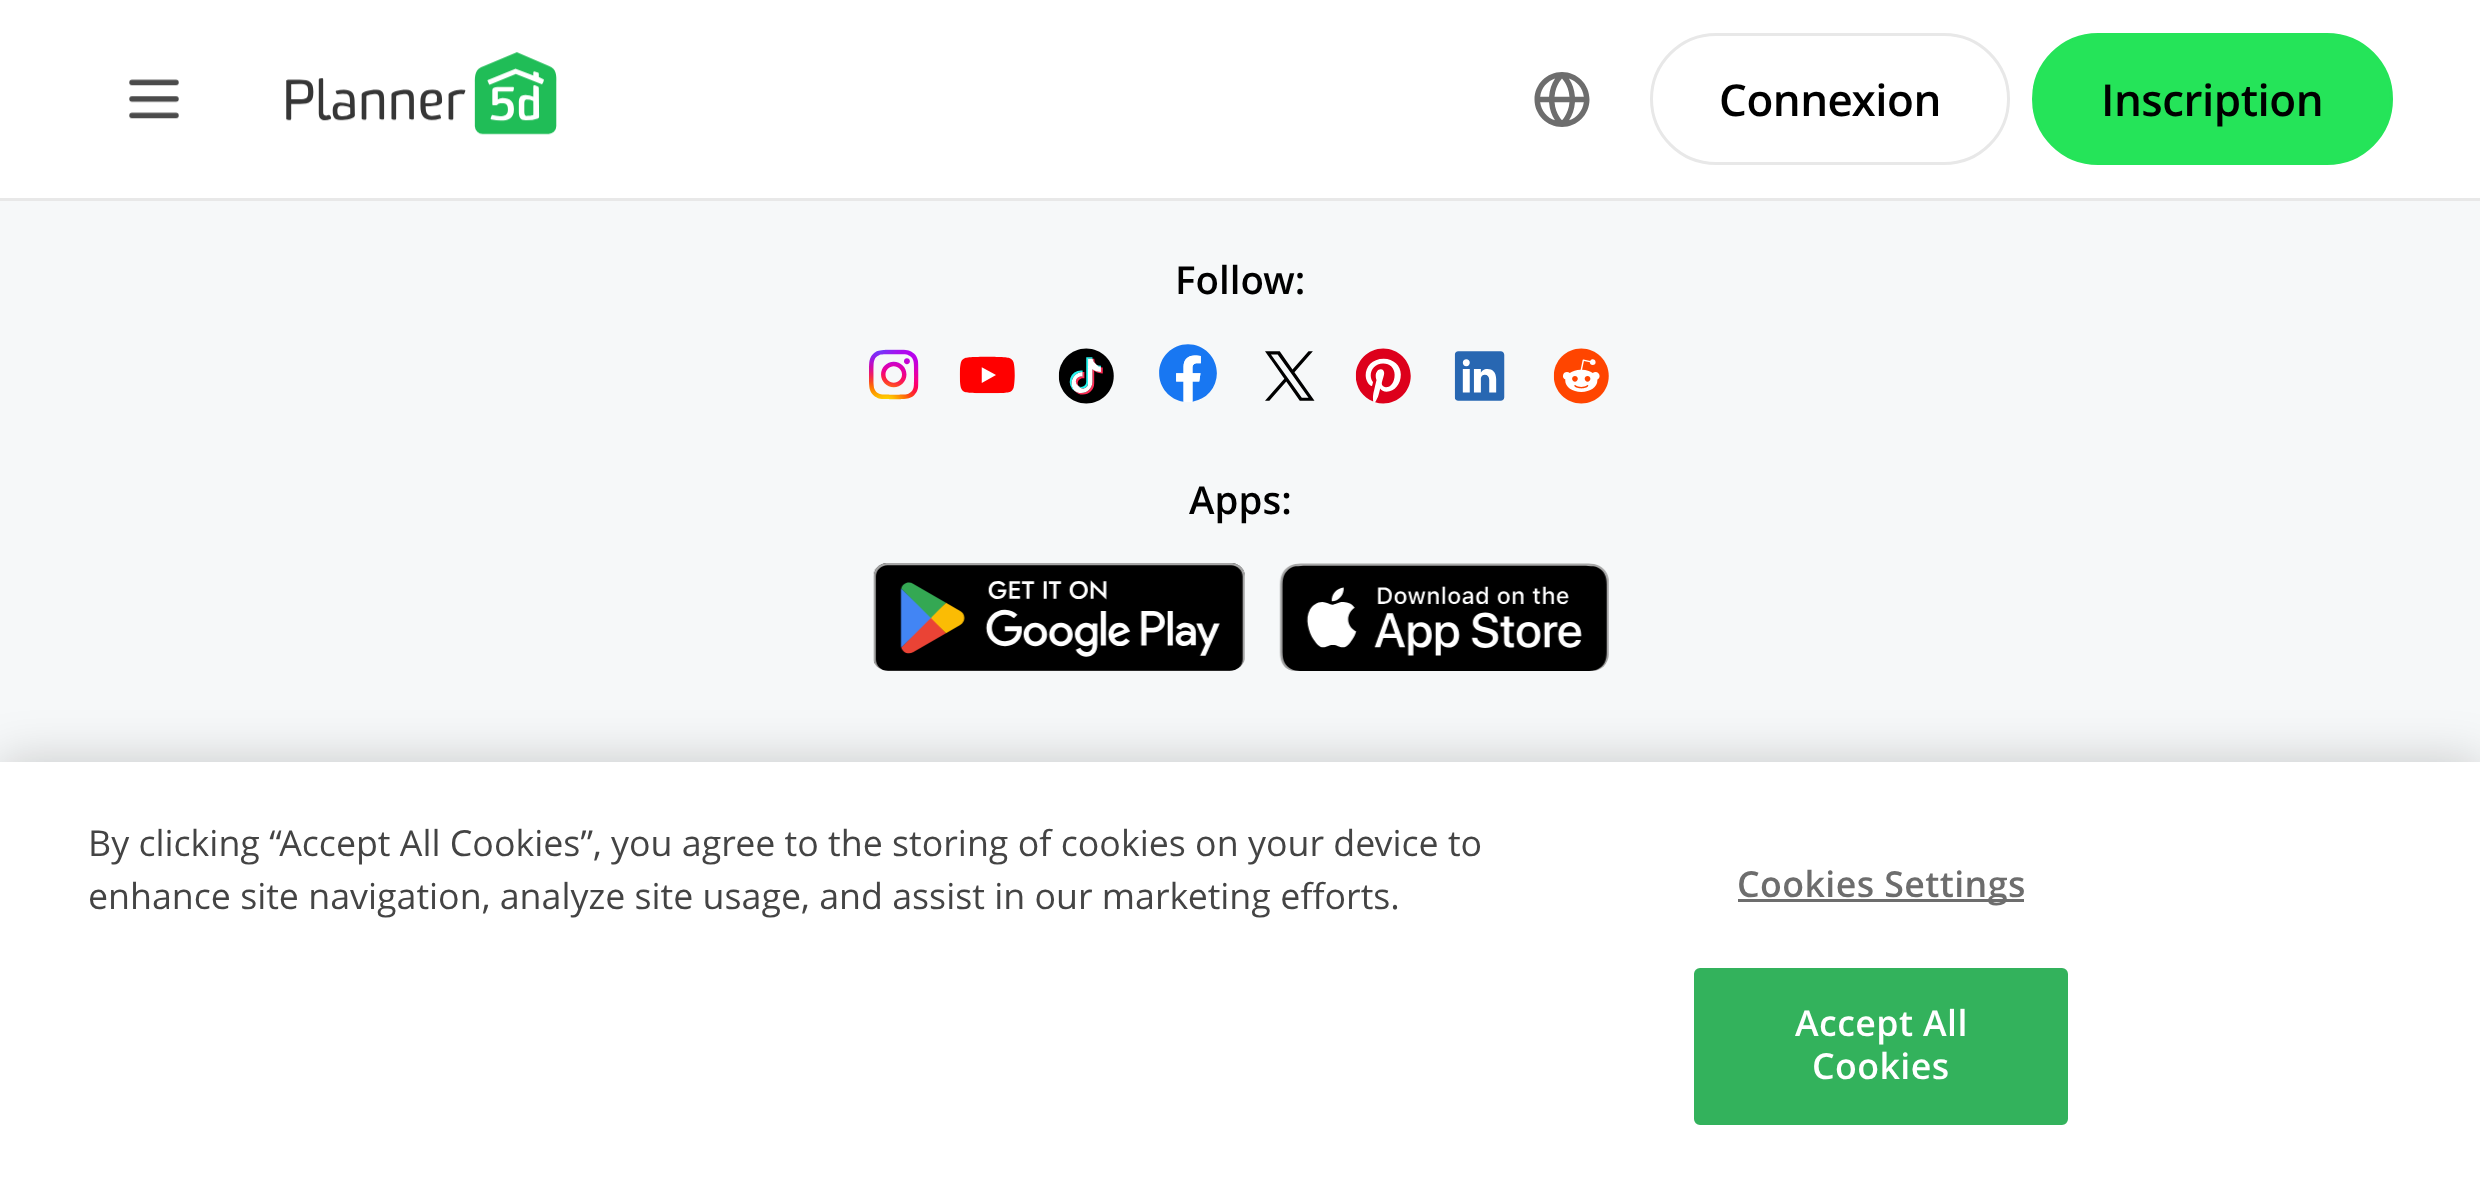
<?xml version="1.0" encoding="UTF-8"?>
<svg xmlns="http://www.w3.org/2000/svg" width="2480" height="1178">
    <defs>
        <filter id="blur1" x="-50%" y="-200%" width="200%" height="500%"><feGaussianBlur stdDeviation="25"/></filter>
    </defs>
    <rect width="100%" height="100%" fill="#F6F8F9"/>
    <rect x="0" y="0" width="2480" height="198" fill="#FFFFFF"/>
    <rect x="0" y="198" width="2480" height="3" fill="#E8E8E8"/>
    <image x="129" y="79" width="50" height="40" href="img_01.png"/>
    <image x="286" y="52" width="271" height="83" href="img_02.png"/>
    <image x="1534" y="72" width="56" height="55" href="img_03.png"/>
    <rect x="1651.5" y="34.5" width="357" height="129" rx="64.5" fill="none" stroke="#E8E8E8" stroke-width="3"/>
    <text x="1719" y="116" font-family="Open Sans" font-size="44" font-weight="600" letter-spacing="-0.5" fill="#000000">Connexion</text>
    <rect x="2033.5" y="34.5" width="358" height="129" rx="64.5" fill="#25E459" stroke="#25E459" stroke-width="3"/>
    <text x="2101" y="116" font-family="Open Sans" font-size="44" font-weight="600" letter-spacing="-0.5" fill="#000000">Inscription</text>
    <text x="1175" y="294" font-family="Open Sans" font-size="38.5" font-weight="600" fill="#000000">Follow:</text>
    <image x="869" y="349" width="50" height="51" href="img_04.png"/>
    <image x="959" y="356" width="56" height="38" href="img_05.png"/>
    <image x="1058" y="348" width="56" height="56" href="img_06.png"/>
    <image x="1159" y="344" width="58" height="58" href="img_07.png"/>
    <image x="1265" y="351" width="50" height="50" href="img_08.png"/>
    <image x="1355" y="348" width="56" height="56" href="img_09.png"/>
    <image x="1454" y="351" width="51" height="50" href="img_10.png"/>
    <image x="1553" y="348" width="56" height="56" href="img_11.png"/>
    <text x="1189" y="514" font-family="Open Sans" font-size="38.5" font-weight="600" fill="#000000">Apps:</text>
    <image x="873" y="563" width="372" height="108" href="img_12.png"/>
    <image x="1279" y="563" width="330" height="108" href="img_13.png"/>
    <rect x="0" y="762" width="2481" height="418" fill="#000000" fill-opacity="0.2" filter="url(#blur1)"/>
    <rect x="0" y="762" width="2480" height="416" fill="#FFFFFF"/>
    <text font-family="Open Sans" font-size="35.75" fill="#444444">
        <tspan x="88" y="856">By clicking “Accept All Cookies”, you agree to the storing of cookies on your device to</tspan>
        <tspan x="88" y="909">enhance site navigation, analyze site usage, and assist in our marketing efforts.</tspan>
    </text>
    <rect x="1738" y="899" width="286" height="3" fill="#6D6D6D"/>
    <text x="1737" y="897" font-family="Open Sans" font-size="35.75" font-weight="600" letter-spacing="0.4" fill="#6D6D6D">Cookies Settings</text>
    <rect x="1695.5" y="969.5" width="371" height="154" rx="4.5" fill="#33B25C" stroke="#33B25C" stroke-width="3"/>
    <text x="1795" y="1036" font-family="Open Sans" font-size="35.75" font-weight="600" letter-spacing="0.4" fill="#FFFFFF">Accept All</text>
    <text x="1812" y="1079" font-family="Open Sans" font-size="35.75" font-weight="600" letter-spacing="0.4" fill="#FFFFFF">Cookies</text>
</svg>
